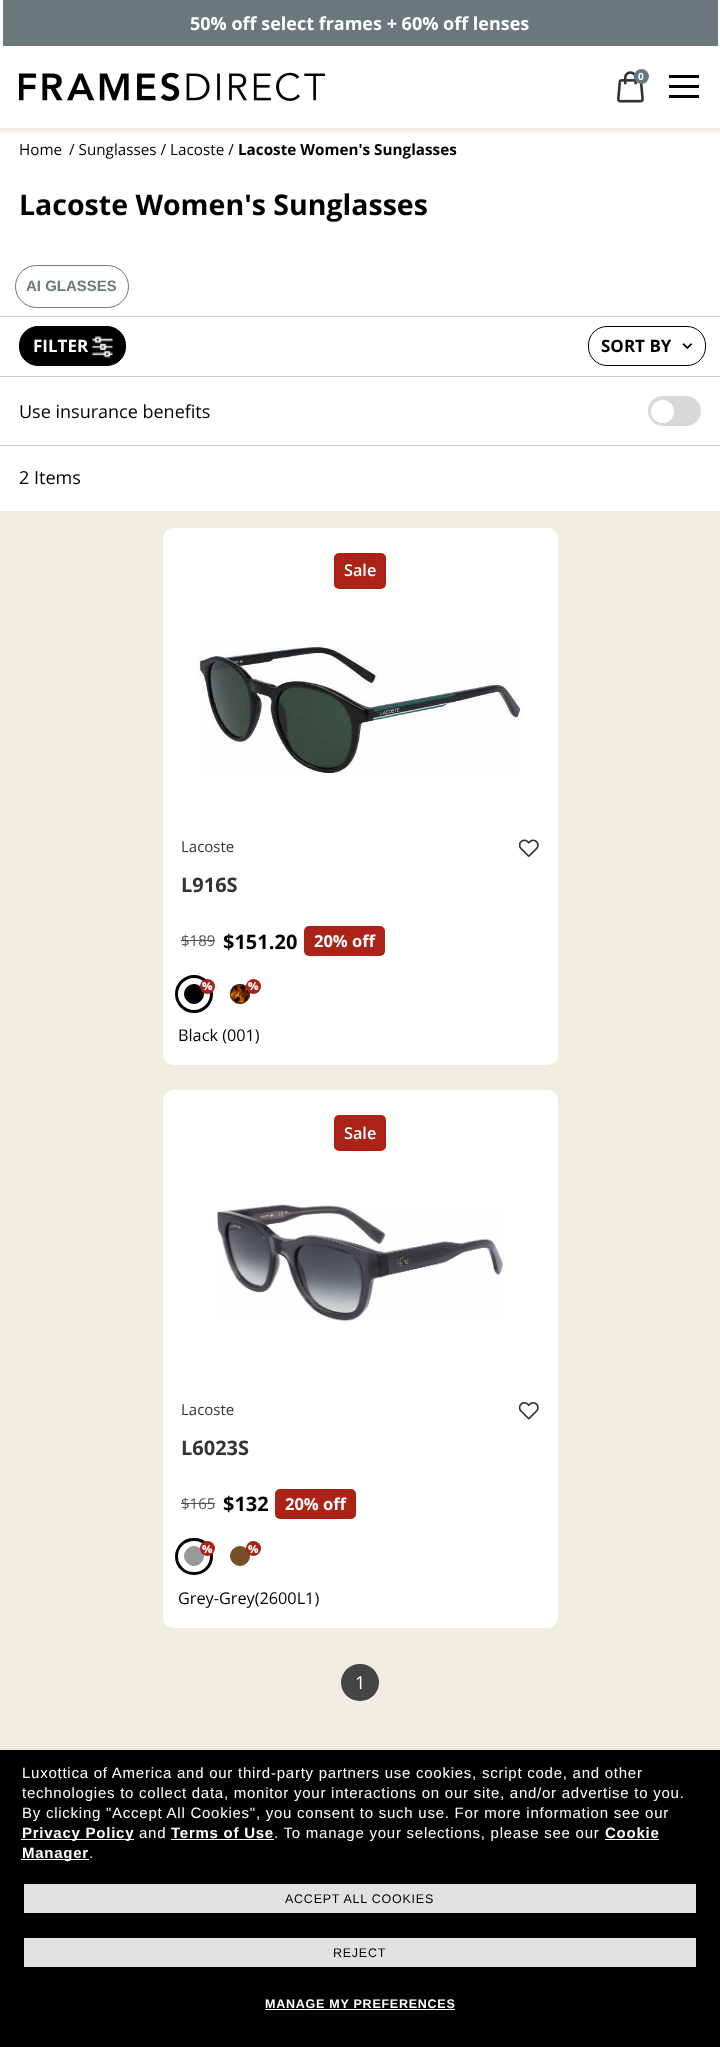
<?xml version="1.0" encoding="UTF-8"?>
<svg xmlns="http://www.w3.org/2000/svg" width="720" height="2047">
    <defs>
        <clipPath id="clip1"><rect x="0" y="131" width="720" height="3"/></clipPath>
        <filter id="blur1" x="-50%" y="-200%" width="200%" height="500%"><feGaussianBlur stdDeviation="3"/></filter>
    </defs>
    <rect width="100%" height="100%" fill="#FFFFFF"/>
    <g clip-path="url(#clip1)">
        <rect x="0" y="1" width="720" height="130" fill="#000000" fill-opacity="0.1" filter="url(#blur1)"/>
    </g>
    <rect x="3" y="0" width="715" height="46" fill="#6B777B"/>
    <text x="190" y="30" font-family="Open Sans" font-size="18" font-weight="700" fill="#FFFFFF">50% off select frames + 60% off lenses</text>
    <image x="19" y="72" width="306" height="29" href="img_01.png"/>
    <image x="617" y="71" width="27" height="32" href="img_02.png"/>
    <circle cx="641.5" cy="76.5" r="7.5" fill="#6B777B"/>
    <text x="638" y="80" font-family="Open Sans" font-size="10" font-weight="700" fill="#FFFFFF">0</text>
    <rect x="669" y="75" width="30" height="3" fill="#000000"/>
    <rect x="669" y="85" width="30" height="3" fill="#000000"/>
    <rect x="669" y="95" width="30" height="3" fill="#000000"/>
    <rect x="0" y="128" width="720" height="3" fill="#F1EDE3"/>
    <text x="19" y="155" font-family="Open Sans" font-size="15.25" fill="#000000">Home</text>
    <text x="69" y="155" font-family="Open Sans" font-size="15.25" fill="#000000">/ Sunglasses / Lacoste /</text>
    <text x="238" y="155" font-family="Open Sans" font-size="15.25" font-weight="700" fill="#000000">Lacoste Women's Sunglasses</text>
    <text x="19" y="215" font-family="Open Sans" font-size="28.5" font-weight="700" fill="#000000">Lacoste Women's Sunglasses</text>
    <rect x="0" y="316" width="720" height="1" fill="#CCCCCC"/>
    <rect x="0" y="445" width="720" height="1" fill="#CCCCCC"/>
    <rect x="15.5" y="265.5" width="113" height="42" rx="21" fill="none" stroke="#6B777B"/>
    <text x="26" y="291" font-family="Liberation Sans" font-size="15" font-weight="700" fill="#6B777B">AI GLASSES</text>
    <rect x="0" y="376" width="720" height="1" fill="#CCCCCC"/>
    <rect x="19.5" y="326.5" width="106" height="39" rx="18.5" fill="#000000" stroke="#000000"/>
    <text x="33" y="352" font-family="Open Sans" font-size="17" font-weight="700" fill="#FFFFFF">FILTER</text>
    <image x="92" y="336" width="21" height="22" href="img_03.png"/>
    <rect x="588.5" y="326.5" width="117" height="39" rx="18.5" fill="none" stroke="#000000"/>
    <text x="601" y="352" font-family="Open Sans" font-size="17" font-weight="700" fill="#000000">SORT BY</text>
    <image x="682" y="343" width="10" height="7" href="img_04.png"/>
    <text x="19" y="418" font-family="Open Sans" font-size="18" fill="#000000">Use insurance benefits</text>
    <rect x="648" y="396" width="53" height="30" rx="15" fill="#D8D8D8"/>
    <circle cx="662.5" cy="411.5" r="11.5" fill="#FFFFFF"/>
    <text x="19" y="484" font-family="Open Sans" font-size="18" fill="#000000">2 Items</text>
    <rect x="0" y="511" width="720" height="1239" fill="#F1EDE3"/>
    <rect x="163" y="528" width="395" height="537" rx="10" fill="#FFFFFF"/>
    <rect x="334" y="553" width="52" height="36" rx="5" fill="#AB2317"/>
    <text x="344" y="576" font-family="Open Sans" font-size="16.25" font-weight="600" fill="#FFFFFF">Sale</text>
    <image x="197" y="643" width="327" height="131" href="img_05.png"/>
    <text x="181" y="852" font-family="Open Sans" font-size="15" fill="#333333">Lacoste</text>
    <image x="519" y="839" width="20" height="18" href="img_06.png"/>
    <text x="181" y="892" font-family="Open Sans" font-size="20" font-weight="700" fill="#333333">L916S</text>
    <text x="181" y="946" font-family="Open Sans" font-size="15" fill="#555555">$189</text>
    <rect x="181" y="940" width="34" height="1" fill="#555555"/>
    <text x="223" y="949" font-family="Open Sans" font-size="20" font-weight="700" fill="#000000">$151.20</text>
    <rect x="304" y="926" width="81" height="30" rx="5" fill="#AB2317"/>
    <text x="314" y="947" font-family="Open Sans" font-size="16.5" font-weight="700" fill="#FFFFFF">20% off</text>
    <circle cx="194" cy="994" r="17.5" fill="none" stroke="#000000" stroke-width="3"/>
    <circle cx="194" cy="994" r="9.5" fill="#000000" stroke="#000000"/>
    <circle cx="207.5" cy="986.5" r="7.5" fill="#AB2317"/>
    <text x="202" y="990" font-family="Open Sans" font-size="11" font-weight="800" fill="#FFFFFF">%</text>
    <circle cx="240" cy="994" r="10" fill="#58280B"/>
    <image x="231" y="985" width="18" height="18" href="img_07.png"/>
    <circle cx="240" cy="994" r="9.5" fill="none" stroke="#58280B"/>
    <circle cx="253.5" cy="986.5" r="7.5" fill="#AB2317"/>
    <text x="248" y="990" font-family="Open Sans" font-size="11" font-weight="800" fill="#FFFFFF">%</text>
    <text x="178" y="1041" font-family="Open Sans" font-size="16.25" fill="#000000">Black (001)</text>
    <rect x="163" y="1090" width="395" height="538" rx="10" fill="#FFFFFF"/>
    <rect x="334" y="1115" width="52" height="36" rx="5" fill="#AB2317"/>
    <text x="344" y="1139" font-family="Open Sans" font-size="16.25" font-weight="600" fill="#FFFFFF">Sale</text>
    <image x="217" y="1204" width="287" height="117" href="img_08.png"/>
    <text x="181" y="1415" font-family="Open Sans" font-size="15" fill="#333333">Lacoste</text>
    <image x="519" y="1402" width="20" height="18" href="img_09.png"/>
    <text x="181" y="1455" font-family="Open Sans" font-size="20" font-weight="700" fill="#333333">L6023S</text>
    <text x="181" y="1509" font-family="Open Sans" font-size="15" fill="#555555">$165</text>
    <rect x="181" y="1503" width="34" height="1" fill="#555555"/>
    <text x="223" y="1511" font-family="Open Sans" font-size="20" font-weight="700" fill="#000000">$132</text>
    <rect x="275" y="1489" width="81" height="30" rx="5" fill="#AB2317"/>
    <text x="285" y="1510" font-family="Open Sans" font-size="16.5" font-weight="700" fill="#FFFFFF">20% off</text>
    <rect x="176.5" y="1539.5" width="35" height="34" rx="17" fill="none" stroke="#000000" stroke-width="3"/>
    <circle cx="194" cy="1556" r="9.5" fill="#999999" stroke="#999999"/>
    <circle cx="207.5" cy="1548.5" r="7.5" fill="#AB2317"/>
    <text x="202" y="1553" font-family="Open Sans" font-size="11" font-weight="800" fill="#FFFFFF">%</text>
    <circle cx="240" cy="1556" r="9.5" fill="#774E26" stroke="#774E26"/>
    <circle cx="253.5" cy="1548.5" r="7.5" fill="#AB2317"/>
    <text x="248" y="1553" font-family="Open Sans" font-size="11" font-weight="800" fill="#FFFFFF">%</text>
    <text x="178" y="1604" font-family="Open Sans" font-size="16.25" fill="#000000">Grey-Grey(2600L1)</text>
    <rect x="341" y="1664" width="38" height="37" rx="18.5" fill="#444444"/>
    <text x="355" y="1689" font-family="Open Sans" font-size="18" fill="#FFFFFF">1</text>
    <rect x="0" y="1750" width="720" height="297" fill="#000000"/>
    <text font-family="Liberation Sans" font-size="15" letter-spacing="0.75" fill="#FFFFFF">
        <tspan x="22" y="1778">Luxottica of America and our third-party partners use cookies, script code, and other</tspan>
        <tspan x="22" y="1798">technologies to collect data, monitor your interactions on our site, and/or advertise to you.</tspan>
        <tspan x="22" y="1818">By clicking "Accept All Cookies", you consent to such use. For more information see our</tspan>
    </text>
    <rect x="21" y="1839" width="113" height="1" fill="#FFFFFF"/>
    <text x="22" y="1838" font-family="Liberation Sans" font-size="15" font-weight="700" letter-spacing="0.75" fill="#FFFFFF">Privacy Policy</text>
    <text x="139" y="1838" font-family="Liberation Sans" font-size="15" letter-spacing="0.75" fill="#FFFFFF">and</text>
    <text x="171" y="1838" font-family="Liberation Sans" font-size="15" font-weight="700" letter-spacing="0.75" fill="#FFFFFF">Terms of Use</text>
    <text x="274" y="1838" font-family="Liberation Sans" font-size="15" letter-spacing="0.75" fill="#FFFFFF">. To manage your selections, please see our</text>
    <rect x="171" y="1839" width="103" height="1" fill="#FFFFFF"/>
    <text x="605" y="1838" font-family="Liberation Sans" font-size="15" font-weight="700" letter-spacing="0.75" fill="#FFFFFF">Cookie</text>
    <rect x="605" y="1839" width="54" height="1" fill="#FFFFFF"/>
    <rect x="21" y="1859" width="68" height="1" fill="#FFFFFF"/>
    <text x="22" y="1858" font-family="Liberation Sans" font-size="15" font-weight="700" letter-spacing="0.75" fill="#FFFFFF">Manager</text>
    <text x="89" y="1858" font-family="Liberation Sans" font-size="15" letter-spacing="0.75" fill="#FFFFFF">.</text>
    <rect x="24" y="1884" width="672" height="29" fill="#E1E1E1"/>
    <text x="285" y="1903" font-family="Liberation Sans" font-size="12.5" letter-spacing="0.75" fill="#000000">ACCEPT ALL COOKIES</text>
    <rect x="24" y="1938" width="672" height="29" fill="#E1E1E1"/>
    <text x="333" y="1957" font-family="Liberation Sans" font-size="12.5" letter-spacing="0.75" fill="#000000">REJECT</text>
    <text x="265" y="2008" font-family="Liberation Sans" font-size="12.5" font-weight="700" letter-spacing="0.75" fill="#FFFFFF">MANAGE MY PREFERENCES</text>
    <rect x="265" y="2009" width="190" height="1" fill="#FFFFFF"/>
</svg>
